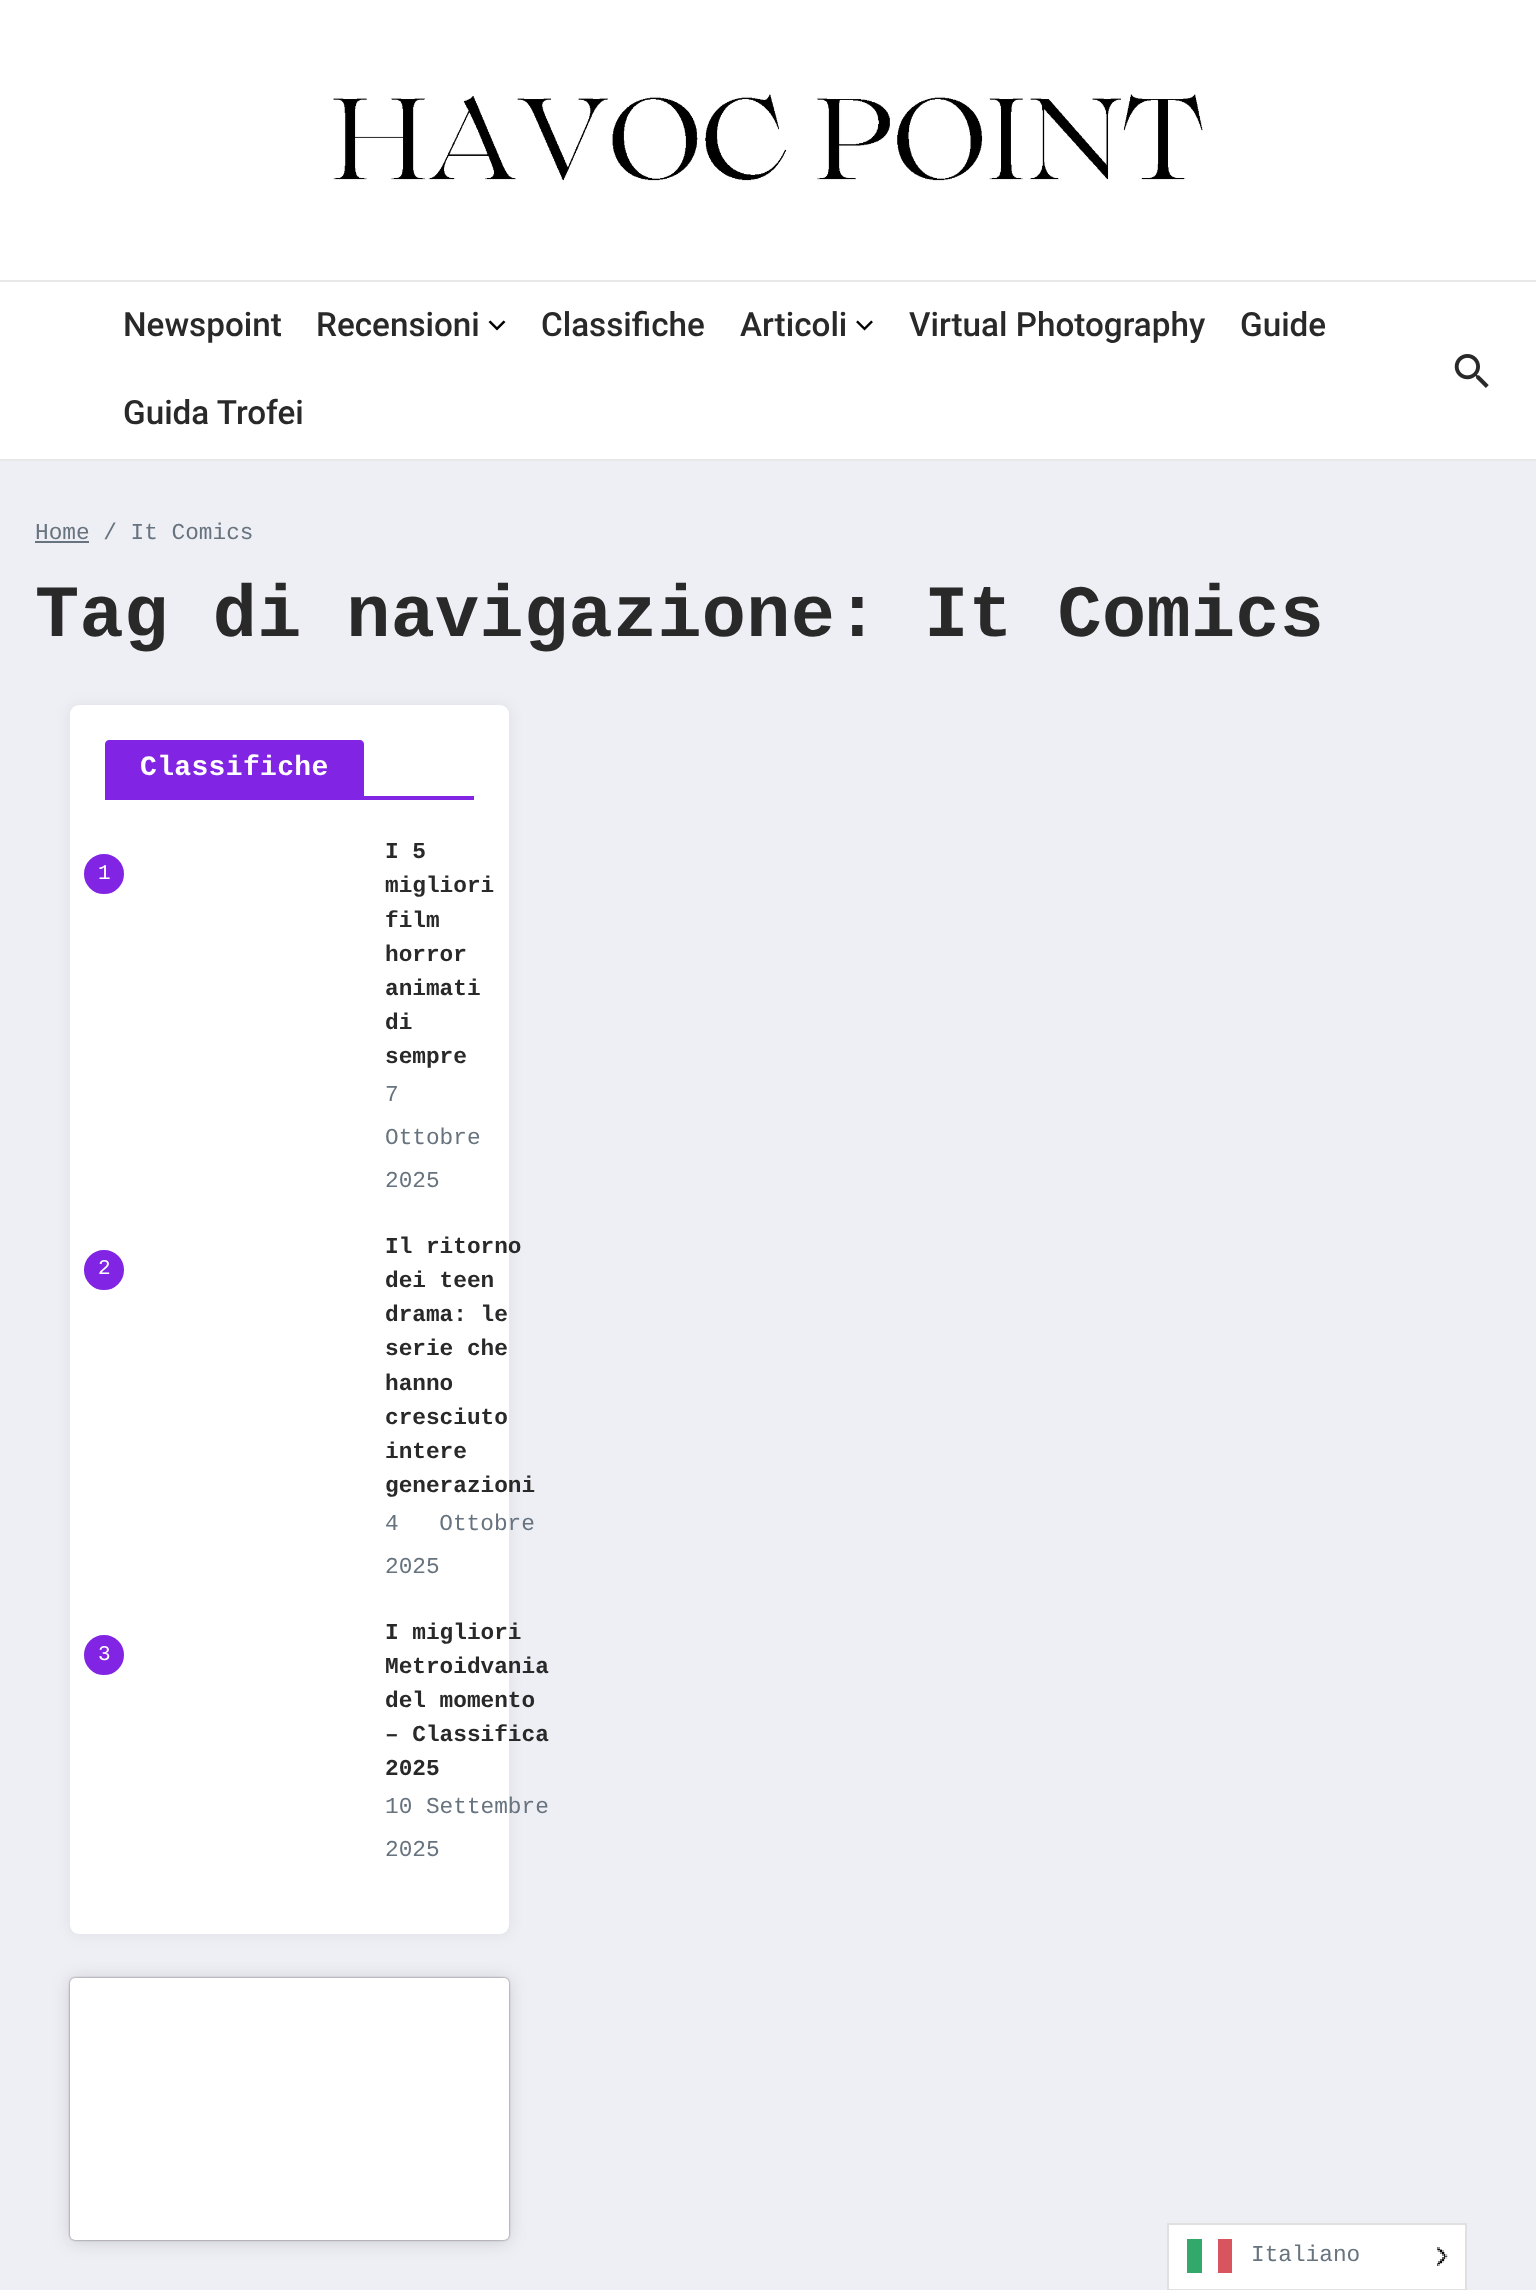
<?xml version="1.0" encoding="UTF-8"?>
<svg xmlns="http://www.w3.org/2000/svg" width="1536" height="2290">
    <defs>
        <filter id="blur1" x="-50%" y="-200%" width="200%" height="500%"><feGaussianBlur stdDeviation="7"/></filter>
        <filter id="blur2" x="-50%" y="-200%" width="200%" height="500%"><feGaussianBlur stdDeviation="9"/></filter>
        <filter id="blur3" x="-50%" y="-200%" width="200%" height="500%"><feGaussianBlur stdDeviation="1"/></filter>
    </defs>
    <rect width="100%" height="100%" fill="#EEEEF5"/>
    <rect x="0" y="0" width="1536" height="280" fill="#FFFFFF"/>
    <rect x="0" y="280" width="1536" height="2" fill="#E8E8E8"/>
    <image x="333" y="94" width="870" height="87" href="img_01.png"/>
    <rect x="0" y="282" width="1536" height="177" fill="#FFFFFF"/>
    <rect x="0" y="459" width="1536" height="2" fill="#E8E8E8"/>
    <text x="123" y="336" font-family="Roboto" font-size="33.25" font-weight="500" fill="#292929">Newspoint</text>
    <text x="316" y="336" font-family="Roboto" font-size="33.25" font-weight="500" fill="#292929">Recensioni</text>
    <path d="M 488.5 322 L 497 330.5 L 505.5 322 L 503.5 320.5 L 497 327 L 490.5 320.5 Z" fill="#000000"/>
    <text x="541" y="336" font-family="Roboto" font-size="33.25" font-weight="500" fill="#292929">Classifiche</text>
    <text x="740" y="336" font-family="Roboto" font-size="33.25" font-weight="500" fill="#292929">Articoli</text>
    <image x="856" y="320" width="17" height="11" href="img_02.png"/>
    <text x="909" y="336" font-family="Roboto" font-size="33.25" font-weight="500" fill="#292929">Virtual Photography</text>
    <text x="1240" y="336" font-family="Roboto" font-size="33.25" font-weight="500" fill="#292929">Guide</text>
    <text x="123" y="424" font-family="Roboto" font-size="33.25" font-weight="500" fill="#292929">Guida Trofei</text>
    <image x="1454" y="354" width="35" height="34" href="img_03.png"/>
    <text x="35" y="539" font-family="Liberation Mono" font-size="22.75" fill="#67737E">Home / It Comics</text>
    <rect x="35" y="541" width="54" height="2" fill="#67737E"/>
    <text x="35" y="636" font-family="Liberation Mono" font-size="73.5" font-weight="700" letter-spacing="0.35" fill="#292929">Tag di navigazione: It Comics</text>
    <rect x="68" y="704" width="443" height="1232" rx="11" fill="#000000" fill-opacity="0.05" filter="url(#blur1)"/>
    <rect x="70" y="705" width="439" height="1229" rx="9" fill="#FFFFFF"/>
    <rect x="105" y="796" width="369" height="4" fill="#8224E3"/>
    <path d="M 109 740 H 360 C 362 740 364 742 364 744 V 796 H 105 V 744 C 105 742 107 740 109 740 Z" fill="#8224E3"/>
    <text x="140" y="775" font-family="Liberation Mono" font-size="28" font-weight="700" letter-spacing="0.35" fill="#FFFFFF">Classifiche</text>
    <circle cx="104" cy="874" r="21" fill="#8224E3" stroke="#FFFFFF" stroke-width="2"/>
    <text x="98" y="879" font-family="Liberation Mono" font-size="21" fill="#FFFFFF">1</text>
    <text font-family="Liberation Mono" font-size="22.75" font-weight="700" fill="#292929">
        <tspan x="385" y="858">I 5</tspan>
        <tspan x="385" y="892">migliori</tspan>
        <tspan x="385" y="927">film</tspan>
        <tspan x="385" y="961">horror</tspan>
        <tspan x="385" y="995">animati</tspan>
        <tspan x="385" y="1029">di</tspan>
        <tspan x="385" y="1063">sempre</tspan>
    </text>
    <text font-family="Liberation Mono" font-size="22.75" fill="#67737E">
        <tspan x="385" y="1101">7</tspan>
        <tspan x="385" y="1144">Ottobre</tspan>
        <tspan x="385" y="1187">2025</tspan>
    </text>
    <circle cx="104" cy="1270" r="21" fill="#8224E3" stroke="#FFFFFF" stroke-width="2"/>
    <text x="98" y="1274" font-family="Liberation Mono" font-size="21" fill="#FFFFFF">2</text>
    <text font-family="Liberation Mono" font-size="22.75" font-weight="700" fill="#292929">
        <tspan x="385" y="1253">Il ritorno</tspan>
        <tspan x="385" y="1287">dei teen</tspan>
        <tspan x="385" y="1321">drama: le</tspan>
        <tspan x="385" y="1355">serie che</tspan>
        <tspan x="385" y="1390">hanno</tspan>
        <tspan x="385" y="1424">cresciuto</tspan>
        <tspan x="385" y="1458">intere</tspan>
        <tspan x="385" y="1492">generazioni</tspan>
    </text>
    <text font-family="Liberation Mono" font-size="22.75" fill="#67737E">
        <tspan x="385" y="1530" word-spacing="27">4 Ottobre</tspan>
        <tspan x="385" y="1573">2025</tspan>
    </text>
    <circle cx="104" cy="1655" r="21" fill="#8224E3" stroke="#FFFFFF" stroke-width="2"/>
    <text x="98" y="1660" font-family="Liberation Mono" font-size="21" fill="#FFFFFF">3</text>
    <text font-family="Liberation Mono" font-size="22.75" font-weight="700" fill="#292929">
        <tspan x="385" y="1639">I migliori</tspan>
        <tspan x="385" y="1673">Metroidvania</tspan>
        <tspan x="385" y="1707">del momento</tspan>
        <tspan x="385" y="1741">– Classifica</tspan>
        <tspan x="385" y="1775">2025</tspan>
    </text>
    <text font-family="Liberation Mono" font-size="22.75" fill="#67737E">
        <tspan x="385" y="1813">10 Settembre</tspan>
        <tspan x="385" y="1856">2025</tspan>
    </text>
    <rect x="70" y="1979" width="439" height="263" rx="5" fill="#000000" fill-opacity="0.15" filter="url(#blur2)"/>
    <rect x="70" y="1978" width="439" height="262" rx="5" fill="#000000" fill-opacity="0.5" filter="url(#blur3)"/>
    <rect x="70" y="1978" width="439" height="262" rx="5" fill="#FFFFFF"/>
    <rect x="1168" y="2224" width="298" height="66" fill="#FFFFFF" stroke="#E0E0E0" stroke-width="2"/>
    <rect x="1187" y="2239" width="15" height="34" fill="#33A86B"/>
    <rect x="1218" y="2239" width="14" height="34" fill="#D8555F"/>
    <text x="1251" y="2261" font-family="Liberation Mono" font-size="22.75" fill="#67737E">Italiano</text>
    <image x="1437" y="2247" width="11" height="19" href="img_04.png"/>
</svg>
